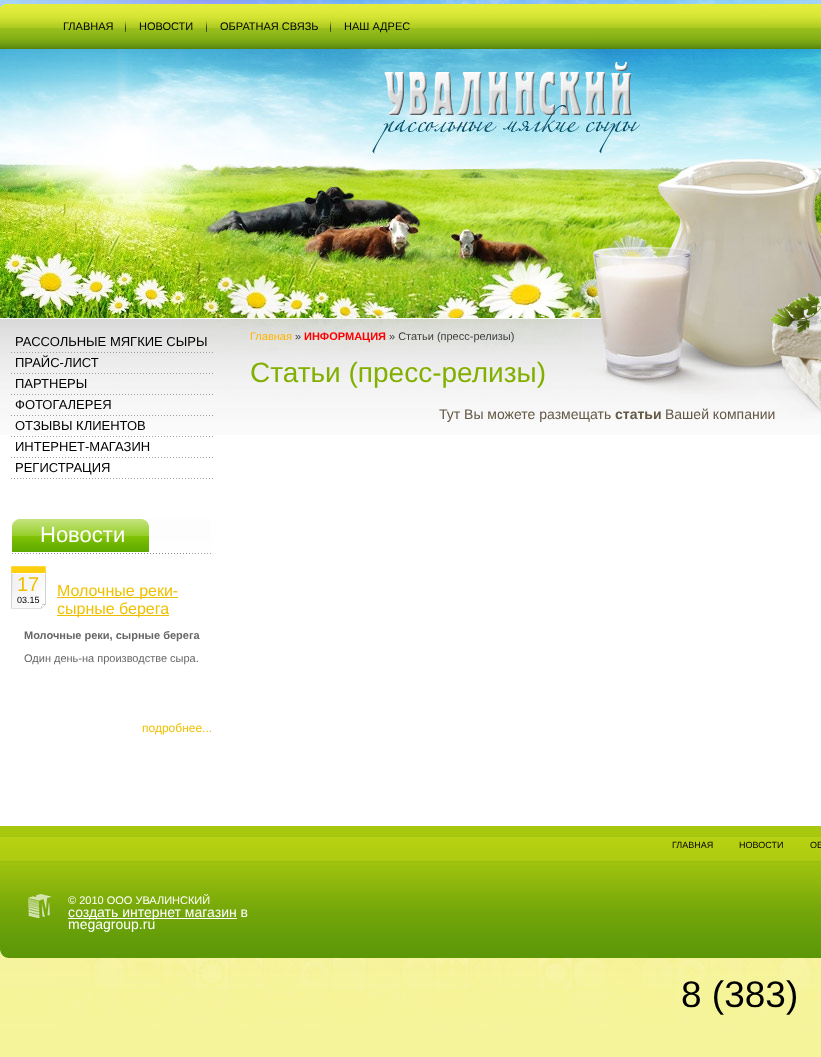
<?xml version="1.0" encoding="UTF-8"?>
<svg xmlns="http://www.w3.org/2000/svg" width="821" height="1057">
    <rect width="100%" height="100%" fill="#F6F49A"/>
    <rect x="0" y="435" width="821" height="325" fill="#FFFFFF"/>
    <image x="0" y="0" width="821" height="435" href="img_01.png"/>
    <image x="125" y="20" width="1" height="12" href="img_02.png"/>
    <text x="63" y="30" font-family="Liberation Sans" font-size="11" fill="#000000">ГЛАВНАЯ</text>
    <image x="206" y="20" width="1" height="12" href="img_02.png"/>
    <text x="139" y="30" font-family="Liberation Sans" font-size="11" fill="#000000">НОВОСТИ</text>
    <image x="330" y="20" width="1" height="12" href="img_02.png"/>
    <text x="220" y="30" font-family="Liberation Sans" font-size="11" fill="#000000">ОБРАТНАЯ СВЯЗЬ</text>
    <text x="344" y="30" font-family="Liberation Sans" font-size="11" fill="#000000">НАШ АДРЕС</text>
    <image x="11" y="352" width="202" height="1" href="img_03.png"/>
    <text x="15" y="346" font-family="Liberation Sans" font-size="13" fill="#000000">РАССОЛЬНЫЕ МЯГКИЕ СЫРЫ</text>
    <image x="11" y="373" width="202" height="1" href="img_04.png"/>
    <text x="15" y="367" font-family="Liberation Sans" font-size="13" fill="#000000">ПРАЙС-ЛИСТ</text>
    <image x="11" y="394" width="202" height="1" href="img_05.png"/>
    <text x="15" y="388" font-family="Liberation Sans" font-size="13" fill="#000000">ПАРТНЕРЫ</text>
    <image x="11" y="415" width="202" height="1" href="img_06.png"/>
    <text x="15" y="409" font-family="Liberation Sans" font-size="13" fill="#000000">ФОТОГАЛЕРЕЯ</text>
    <image x="11" y="436" width="202" height="1" href="img_07.png"/>
    <text x="15" y="430" font-family="Liberation Sans" font-size="13" fill="#000000">ОТЗЫВЫ КЛИЕНТОВ</text>
    <image x="11" y="457" width="202" height="1" href="img_07.png"/>
    <text x="15" y="451" font-family="Liberation Sans" font-size="13" fill="#000000">ИНТЕРНЕТ-МАГАЗИН</text>
    <image x="11" y="478" width="202" height="1" href="img_07.png"/>
    <text x="15" y="472" font-family="Liberation Sans" font-size="13" fill="#000000">РЕГИСТРАЦИЯ</text>
    <image x="12" y="519" width="199" height="35" href="img_08.png"/>
    <text x="40" y="542" font-family="Liberation Sans" font-size="22" fill="#FFFFFF">Новости</text>
    <image x="11" y="566" width="35" height="43" href="img_09.png"/>
    <text x="17" y="591" font-family="Liberation Sans" font-size="20" fill="#F0C000">17</text>
    <text x="17" y="603" font-family="Liberation Sans" font-size="9" fill="#000000">03.15</text>
    <rect x="57" y="597" width="121" height="1" fill="#ECBD00"/>
    <text x="57" y="596" font-family="Liberation Sans" font-size="16" fill="#F0C000">Молочные реки-</text>
    <rect x="57" y="615" width="112" height="1" fill="#ECBD00"/>
    <text x="57" y="614" font-family="Liberation Sans" font-size="16" fill="#F0C000">сырные берега</text>
    <text x="24" y="639" font-family="Liberation Sans" font-size="11" font-weight="700" fill="#666666">Молочные реки, сырные берега</text>
    <text x="24" y="662" font-family="Liberation Sans" font-size="11" fill="#666666">Один день-на производстве сыра.</text>
    <text x="142" y="732" font-family="Liberation Sans" font-size="12" fill="#F0C000">подробнее...</text>
    <text x="250" y="340" font-family="Liberation Sans" font-size="11" fill="#FFB400">Главная</text>
    <text x="295" y="340" font-family="Liberation Sans" font-size="11" fill="#3C3C3C">»</text>
    <text x="304" y="340" font-family="Liberation Sans" font-size="11" font-weight="700" fill="#FF0000">ИНФОРМАЦИЯ</text>
    <text x="389" y="340" font-family="Liberation Sans" font-size="11" fill="#3C3C3C">» Статьи (пресс-релизы)</text>
    <text x="250" y="382" font-family="Liberation Sans" font-size="28" fill="#82AF00">Статьи (пресс-релизы)</text>
    <text x="439" y="419" font-family="Liberation Sans" font-size="14" fill="#635745">Тут Вы можете размещать</text>
    <text x="615" y="419" font-family="Liberation Sans" font-size="14" font-weight="700" fill="#635745">статьи</text>
    <text x="665" y="419" font-family="Liberation Sans" font-size="14" fill="#635745">Вашей компании</text>
    <image x="0" y="760" width="821" height="272" href="img_10.png"/>
    <text x="672" y="848" font-family="Liberation Sans" font-size="9" fill="#000000">ГЛАВНАЯ</text>
    <text x="739" y="848" font-family="Liberation Sans" font-size="9" fill="#000000">НОВОСТИ</text>
    <text x="810" y="848" font-family="Liberation Sans" font-size="9" fill="#000000">ОБ</text>
    <image x="28" y="894" width="24" height="24" href="img_11.png"/>
    <text x="68" y="904" font-family="Liberation Sans" font-size="11" fill="#FFFFFF">© 2010 ООО УВАЛИНСКИЙ</text>
    <rect x="68" y="918" width="169" height="1" fill="#FFFFFF"/>
    <text font-family="Liberation Sans" font-size="14" fill="#FFFFFF">
        <tspan x="68" y="917">создать интернет магазин в</tspan>
        <tspan x="68" y="929">megagroup.ru</tspan>
    </text>
    <text x="681" y="1007" font-family="Liberation Sans" font-size="37" fill="#000000">8 (383)</text>
</svg>
